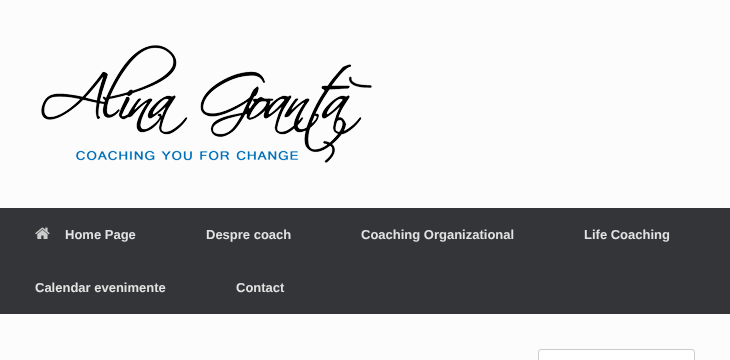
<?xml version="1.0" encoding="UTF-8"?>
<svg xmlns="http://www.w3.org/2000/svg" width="730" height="360">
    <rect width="100%" height="100%" fill="#FCFCFC"/>
    <image x="41" y="45" width="331" height="118" href="img_01.png"/>
    <rect x="0" y="208" width="730" height="106" fill="#343538"/>
    <image x="35" y="227" width="15" height="12" href="img_02.png"/>
    <text x="65" y="239" font-family="Liberation Sans" font-size="13" font-weight="700" fill="#E2E2E2">Home Page</text>
    <text x="206" y="239" font-family="Liberation Sans" font-size="13" font-weight="700" fill="#E2E2E2">Despre coach</text>
    <text x="361" y="239" font-family="Liberation Sans" font-size="13" font-weight="700" fill="#E2E2E2">Coaching Organizational</text>
    <text x="584" y="239" font-family="Liberation Sans" font-size="13" font-weight="700" fill="#E2E2E2">Life Coaching</text>
    <text x="35" y="292" font-family="Liberation Sans" font-size="13" font-weight="700" fill="#E2E2E2">Calendar evenimente</text>
    <text x="236" y="292" font-family="Liberation Sans" font-size="13" font-weight="700" fill="#E2E2E2">Contact</text>
    <rect x="538.5" y="349.5" width="156" height="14" rx="2.5" fill="#FFFFFF" stroke="#CCCCCC"/>
</svg>
